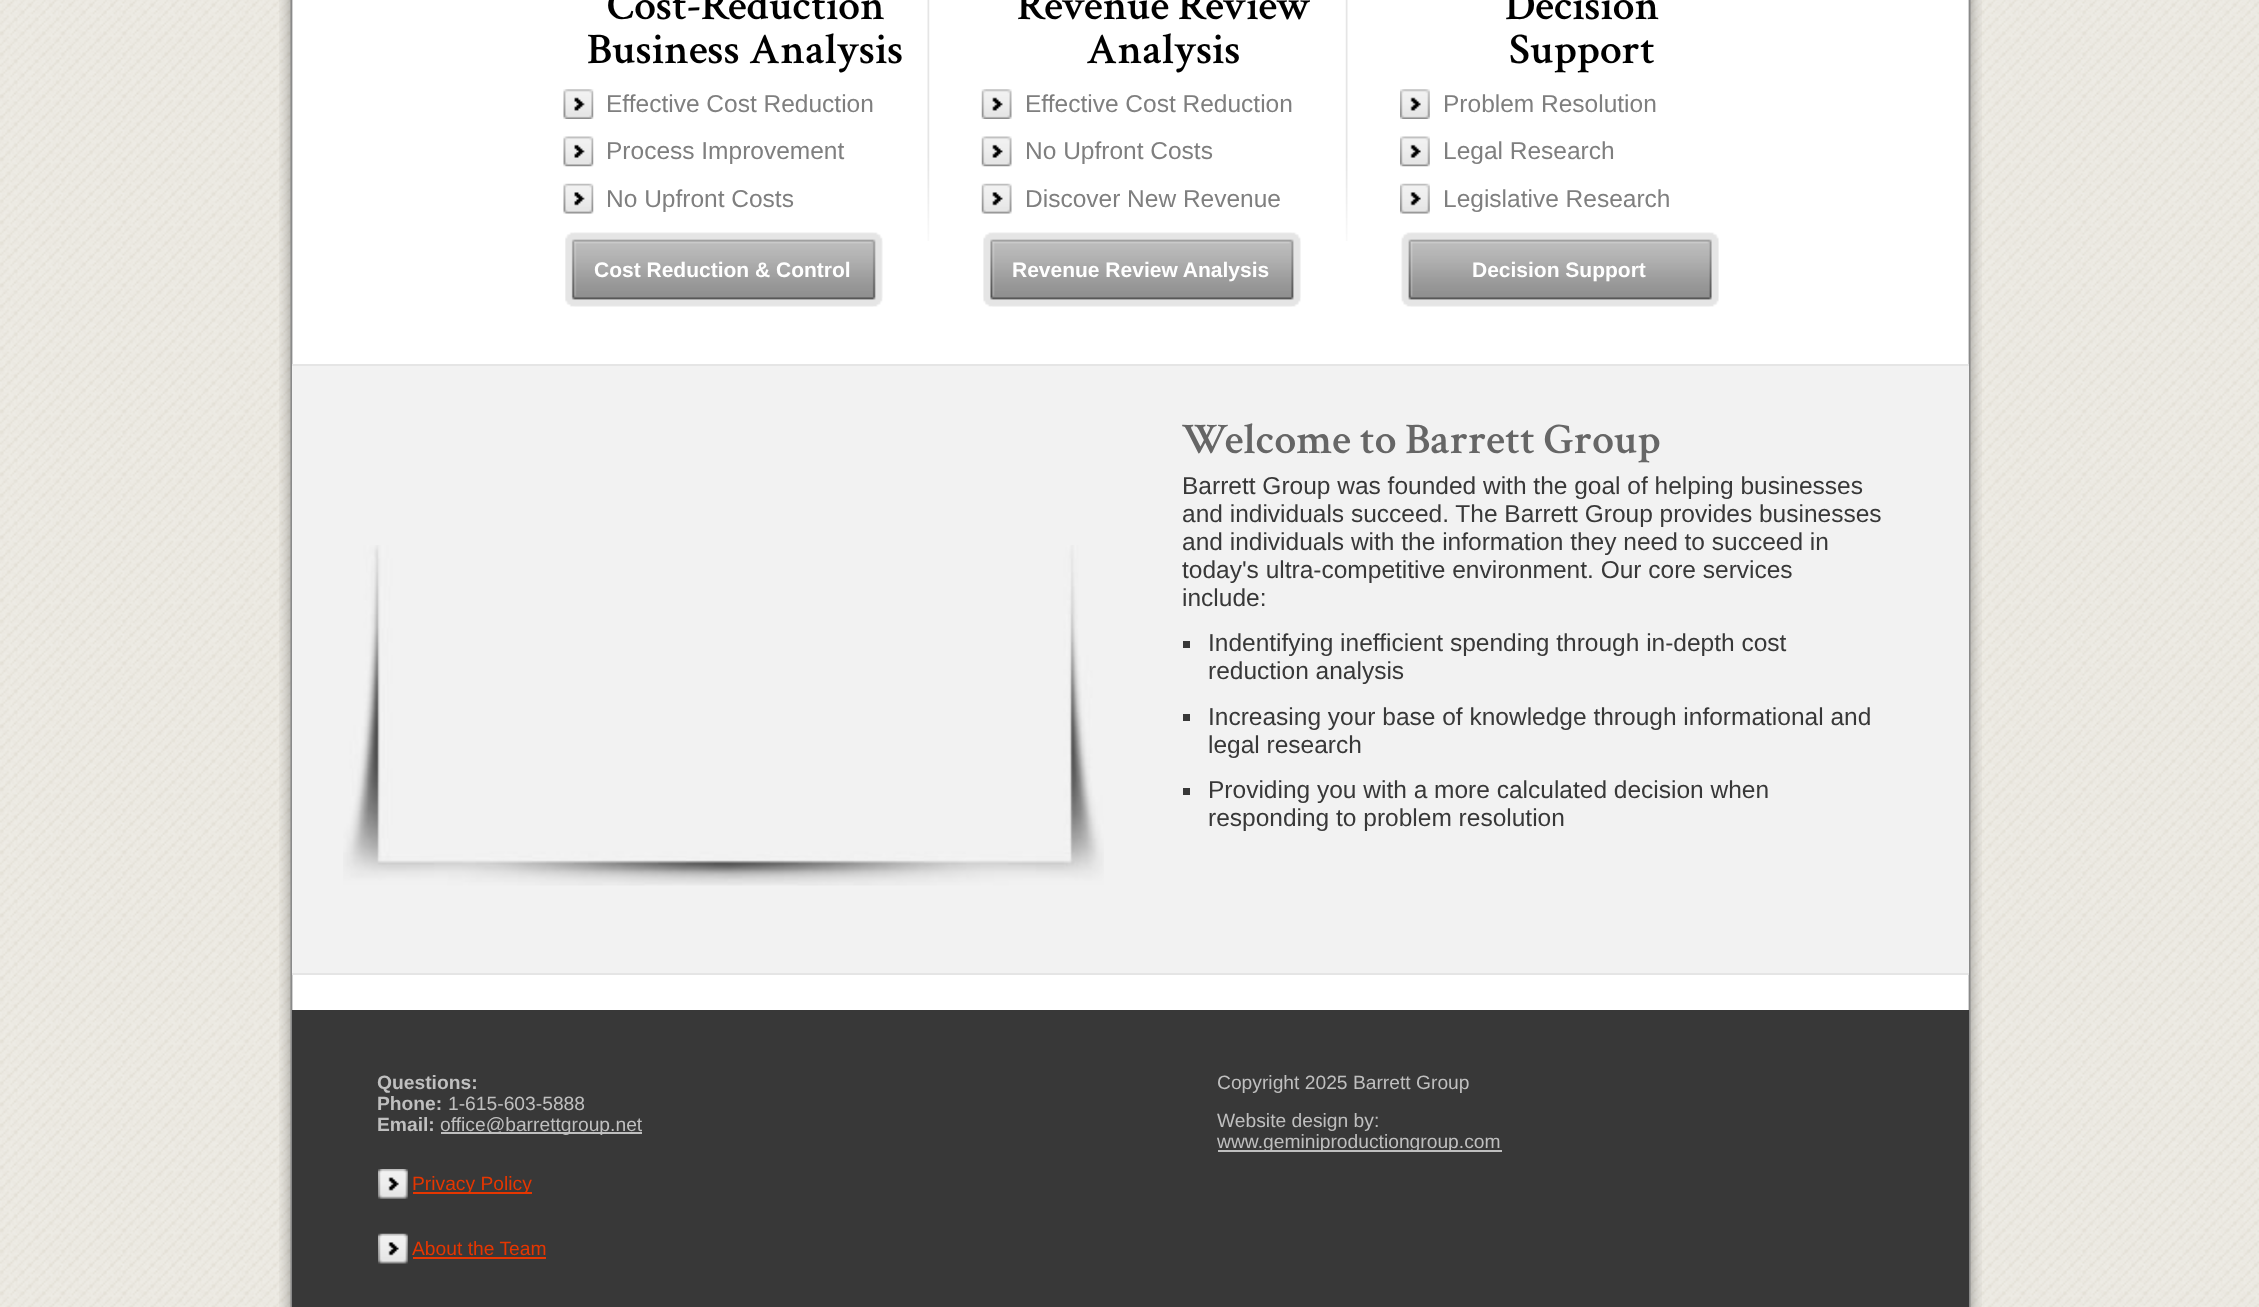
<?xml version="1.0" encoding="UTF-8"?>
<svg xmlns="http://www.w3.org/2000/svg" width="2259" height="1307">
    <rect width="100%" height="100%" fill="#FFFFFF"/>
    <image x="0" y="0" width="2259" height="1307" href="img_01.png"/>
    <image x="279" y="0" width="1703" height="1307" href="img_02.png"/>
    <image x="927" y="0" width="3" height="241" href="img_03.png"/>
    <text x="607" y="19" font-family="Crimson Text" font-size="43.75" font-weight="600" fill="#000000">Cost-Reduction</text>
    <text x="587" y="63" font-family="Crimson Text" font-size="43.75" font-weight="600" fill="#000000">Business Analysis</text>
    <image x="563" y="89" width="31" height="30" href="img_04.png"/>
    <text x="606" y="112" font-family="Liberation Sans" font-size="24.5" fill="#7F7F7F">Effective Cost Reduction</text>
    <image x="563" y="136" width="31" height="31" href="img_05.png"/>
    <text x="606" y="159" font-family="Liberation Sans" font-size="24.5" fill="#7F7F7F">Process Improvement</text>
    <image x="563" y="183" width="31" height="31" href="img_06.png"/>
    <text x="606" y="207" font-family="Liberation Sans" font-size="24.5" fill="#7F7F7F">No Upfront Costs</text>
    <image x="565" y="232" width="318" height="75" href="img_07.png"/>
    <text x="594" y="277" font-family="Liberation Sans" font-size="21" font-weight="700" fill="#FFFFFF">Cost Reduction &amp; Control</text>
    <image x="1345" y="0" width="3" height="241" href="img_08.png"/>
    <text x="1017" y="19" font-family="Crimson Text" font-size="43.75" font-weight="600" fill="#000000">Revenue Review</text>
    <text x="1086" y="63" font-family="Crimson Text" font-size="43.75" font-weight="600" fill="#000000">Analysis</text>
    <image x="981" y="89" width="31" height="30" href="img_09.png"/>
    <text x="1025" y="112" font-family="Liberation Sans" font-size="24.5" fill="#7F7F7F">Effective Cost Reduction</text>
    <image x="981" y="136" width="31" height="31" href="img_10.png"/>
    <text x="1025" y="159" font-family="Liberation Sans" font-size="24.5" fill="#7F7F7F">No Upfront Costs</text>
    <image x="981" y="183" width="31" height="31" href="img_11.png"/>
    <text x="1025" y="207" font-family="Liberation Sans" font-size="24.5" fill="#7F7F7F">Discover New Revenue</text>
    <image x="983" y="232" width="318" height="75" href="img_12.png"/>
    <text x="1012" y="277" font-family="Liberation Sans" font-size="21" font-weight="700" fill="#FFFFFF">Revenue Review Analysis</text>
    <text x="1505" y="19" font-family="Crimson Text" font-size="43.75" font-weight="600" fill="#000000">Decision</text>
    <text x="1509" y="63" font-family="Crimson Text" font-size="43.75" font-weight="600" fill="#000000">Support</text>
    <image x="1400" y="89" width="30" height="30" href="img_13.png"/>
    <text x="1443" y="112" font-family="Liberation Sans" font-size="24.5" fill="#7F7F7F">Problem Resolution</text>
    <image x="1400" y="136" width="30" height="31" href="img_14.png"/>
    <text x="1443" y="159" font-family="Liberation Sans" font-size="24.5" fill="#7F7F7F">Legal Research</text>
    <image x="1400" y="183" width="30" height="31" href="img_15.png"/>
    <text x="1443" y="207" font-family="Liberation Sans" font-size="24.5" fill="#7F7F7F">Legislative Research</text>
    <image x="1401" y="232" width="318" height="75" href="img_16.png"/>
    <text x="1472" y="277" font-family="Liberation Sans" font-size="21" font-weight="700" fill="#FFFFFF">Decision Support</text>
    <rect x="292" y="366" width="1677" height="607" fill="#F2F2F2"/>
    <rect x="292" y="364" width="1677" height="2" fill="#E5E5E5"/>
    <rect x="292" y="973" width="1677" height="2" fill="#E5E5E5"/>
    <image x="343" y="545" width="761" height="341" href="img_17.png"/>
    <text x="1182" y="453" font-family="Crimson Text" font-size="43.75" font-weight="600" fill="#666666">Welcome to Barrett Group</text>
    <text font-family="Liberation Sans" font-size="24.5" fill="#383838">
        <tspan x="1182" y="494">Barrett Group was founded with the goal of helping businesses</tspan>
        <tspan x="1182" y="522">and individuals succeed. The Barrett Group provides businesses</tspan>
        <tspan x="1182" y="550">and individuals with the information they need to succeed in</tspan>
        <tspan x="1182" y="578">today's ultra-competitive environment. Our core services</tspan>
        <tspan x="1182" y="606">include:</tspan>
    </text>
    <rect x="1183" y="641" width="7" height="7" fill="#383838"/>
    <text font-family="Liberation Sans" font-size="24.5" fill="#383838">
        <tspan x="1208" y="651">Indentifying inefficient spending through in-depth cost</tspan>
        <tspan x="1208" y="679">reduction analysis</tspan>
    </text>
    <rect x="1183" y="714" width="7" height="7" fill="#383838"/>
    <text font-family="Liberation Sans" font-size="24.5" fill="#383838">
        <tspan x="1208" y="725">Increasing your base of knowledge through informational and</tspan>
        <tspan x="1208" y="753">legal research</tspan>
    </text>
    <rect x="1183" y="788" width="7" height="7" fill="#383838"/>
    <text font-family="Liberation Sans" font-size="24.5" fill="#383838">
        <tspan x="1208" y="798">Providing you with a more calculated decision when</tspan>
        <tspan x="1208" y="826">responding to problem resolution</tspan>
    </text>
    <rect x="292" y="1010" width="1677" height="297" fill="#383838"/>
    <text font-family="Liberation Sans" font-size="19.25" font-weight="700" fill="#BFBFBF">
        <tspan x="377" y="1089">Questions:</tspan>
        <tspan x="377" y="1110">Phone:</tspan>
    </text>
    <text x="448" y="1110" font-family="Liberation Sans" font-size="19.25" fill="#BFBFBF">1-615-603-5888</text>
    <text x="377" y="1131" font-family="Liberation Sans" font-size="19.25" font-weight="700" fill="#BFBFBF">Email:</text>
    <rect x="441" y="1132" width="201" height="2" fill="#BFBFBF"/>
    <text x="440" y="1131" font-family="Liberation Sans" font-size="19.25" fill="#BFBFBF">office@barrettgroup.net</text>
    <image x="378" y="1169" width="30" height="30" href="img_18.png"/>
    <rect x="413" y="1192" width="119" height="2" fill="#E63600"/>
    <text x="412" y="1190" font-family="Liberation Sans" font-size="19.25" fill="#E63600">Privacy Policy</text>
    <image x="378" y="1233" width="30" height="31" href="img_19.png"/>
    <text x="412" y="1255" font-family="Liberation Sans" font-size="19.25" fill="#E63600">About the Team</text>
    <rect x="413" y="1257" width="133" height="2" fill="#E63600"/>
    <text font-family="Liberation Sans" font-size="19.25" fill="#BFBFBF">
        <tspan x="1217" y="1089">Copyright 2025 Barrett Group</tspan>
        <tspan x="1217" y="1127">Website design by:</tspan>
    </text>
    <rect x="1218" y="1150" width="284" height="2" fill="#BFBFBF"/>
    <text x="1217" y="1148" font-family="Liberation Sans" font-size="19.25" fill="#BFBFBF">www.geminiproductiongroup.com</text>
</svg>
